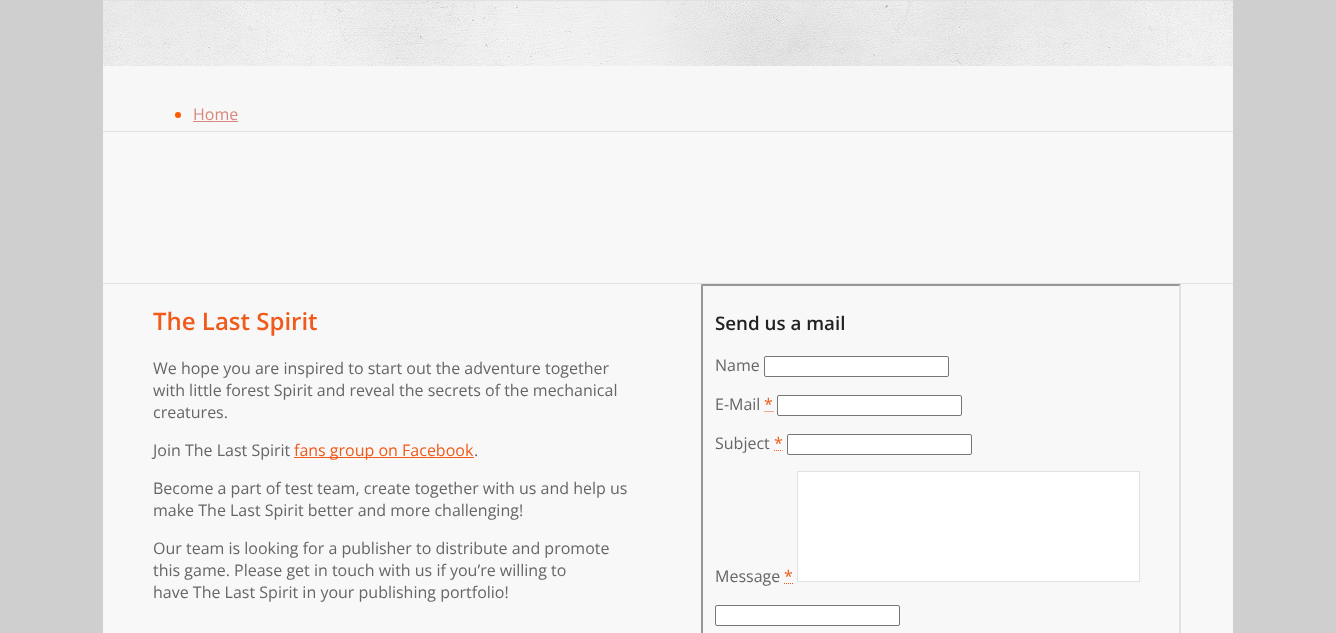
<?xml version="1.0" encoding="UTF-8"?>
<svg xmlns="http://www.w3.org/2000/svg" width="1336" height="633">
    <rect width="100%" height="100%" fill="#CFCFCF"/>
    <rect x="103" y="1" width="1130" height="130" fill="#F7F7F7"/>
    <image x="103" y="1" width="1130" height="65" href="img_01.png"/>
    <rect x="103" y="0" width="1130" height="1" fill="#E1E1E1"/>
    <circle cx="178" cy="115" r="3" fill="#FF5900"/>
    <text x="193" y="120" font-family="Open Sans" font-size="16" fill="#D9867C">Home</text>
    <rect x="193" y="121" width="45" height="1" fill="#D9867C"/>
    <rect x="103" y="132" width="1130" height="151" fill="#F8F8F8"/>
    <rect x="103" y="131" width="1130" height="1" fill="#E1E1E1"/>
    <rect x="103" y="284" width="1130" height="349" fill="#F8F8F8"/>
    <rect x="103" y="283" width="1130" height="1" fill="#E1E1E1"/>
    <text x="153" y="330" font-family="Open Sans" font-size="24" font-weight="600" fill="#F05A1A">The Last Spirit</text>
    <text font-family="Open Sans" font-size="16" fill="#666666">
        <tspan x="153" y="374">We hope you are inspired to start out the adventure together</tspan>
        <tspan x="153" y="396">with little forest Spirit and reveal the secrets of the mechanical</tspan>
        <tspan x="153" y="418">creatures.</tspan>
    </text>
    <text x="153" y="456" font-family="Open Sans" font-size="16" fill="#666666">Join The Last Spirit</text>
    <rect x="294" y="457" width="180" height="1" fill="#F05A1A"/>
    <text x="294" y="456" font-family="Open Sans" font-size="16" fill="#F05A1A">fans group on Facebook</text>
    <text x="474" y="456" font-family="Open Sans" font-size="16" fill="#666666">.</text>
    <text font-family="Open Sans" font-size="16" fill="#666666">
        <tspan x="153" y="494">Become a part of test team, create together with us and help us</tspan>
        <tspan x="153" y="516">make The Last Spirit better and more challenging!</tspan>
    </text>
    <text font-family="Open Sans" font-size="16" fill="#666666">
        <tspan x="153" y="554">Our team is looking for a publisher to distribute and promote</tspan>
        <tspan x="153" y="576">this game. Please get in touch with us if you’re willing to</tspan>
        <tspan x="153" y="598">have The Last Spirit in your publishing portfolio!</tspan>
    </text>
    <path d="M 701 284 H 1181 L 1179 286 H 703 Z" fill="#969696"/>
    <path d="M 1181 284 V 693 L 1179 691 V 286 Z" fill="#E1E1E1"/>
    <path d="M 701 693 V 284 L 703 286 V 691 Z" fill="#969696"/>
    <text x="715" y="330" font-family="Open Sans" font-size="18.75" font-weight="600" fill="#222222">Send us a mail</text>
    <text x="715" y="371" font-family="Open Sans" font-size="16" fill="#666666">Name</text>
    <rect x="764.5" y="356.5" width="184" height="20" rx="1.5" fill="#FFFFFF" stroke="#767676"/>
    <text x="715" y="410" font-family="Open Sans" font-size="16" fill="#666666">E-Mail</text>
    <path d="M 764.5 411.5 H 773.5" fill="none" stroke="#F05A1A" stroke-dasharray="1 1"/>
    <text x="764" y="410" font-family="Open Sans" font-size="16" fill="#F05A1A">*</text>
    <rect x="777.5" y="395.5" width="184" height="20" rx="1.5" fill="#FFFFFF" stroke="#767676"/>
    <text x="715" y="449" font-family="Open Sans" font-size="16" fill="#666666">Subject</text>
    <path d="M 774 450.5 H 782.5" fill="none" stroke="#F05A1A" stroke-dasharray="1 1"/>
    <text x="774" y="449" font-family="Open Sans" font-size="16" fill="#F05A1A">*</text>
    <rect x="787.5" y="434.5" width="184" height="20" rx="1.5" fill="#FFFFFF" stroke="#767676"/>
    <text x="715" y="582" font-family="Open Sans" font-size="16" fill="#666666">Message</text>
    <path d="M 784 583.5 H 793" fill="none" stroke="#F05A1A" stroke-dasharray="1 1"/>
    <text x="784" y="582" font-family="Open Sans" font-size="16" fill="#F05A1A">*</text>
    <rect x="797.5" y="471.5" width="342" height="110" fill="#FFFFFF" stroke="#E1E1E1"/>
    <rect x="715.5" y="605.5" width="184" height="20" rx="1.5" fill="#FFFFFF" stroke="#767676"/>
</svg>
